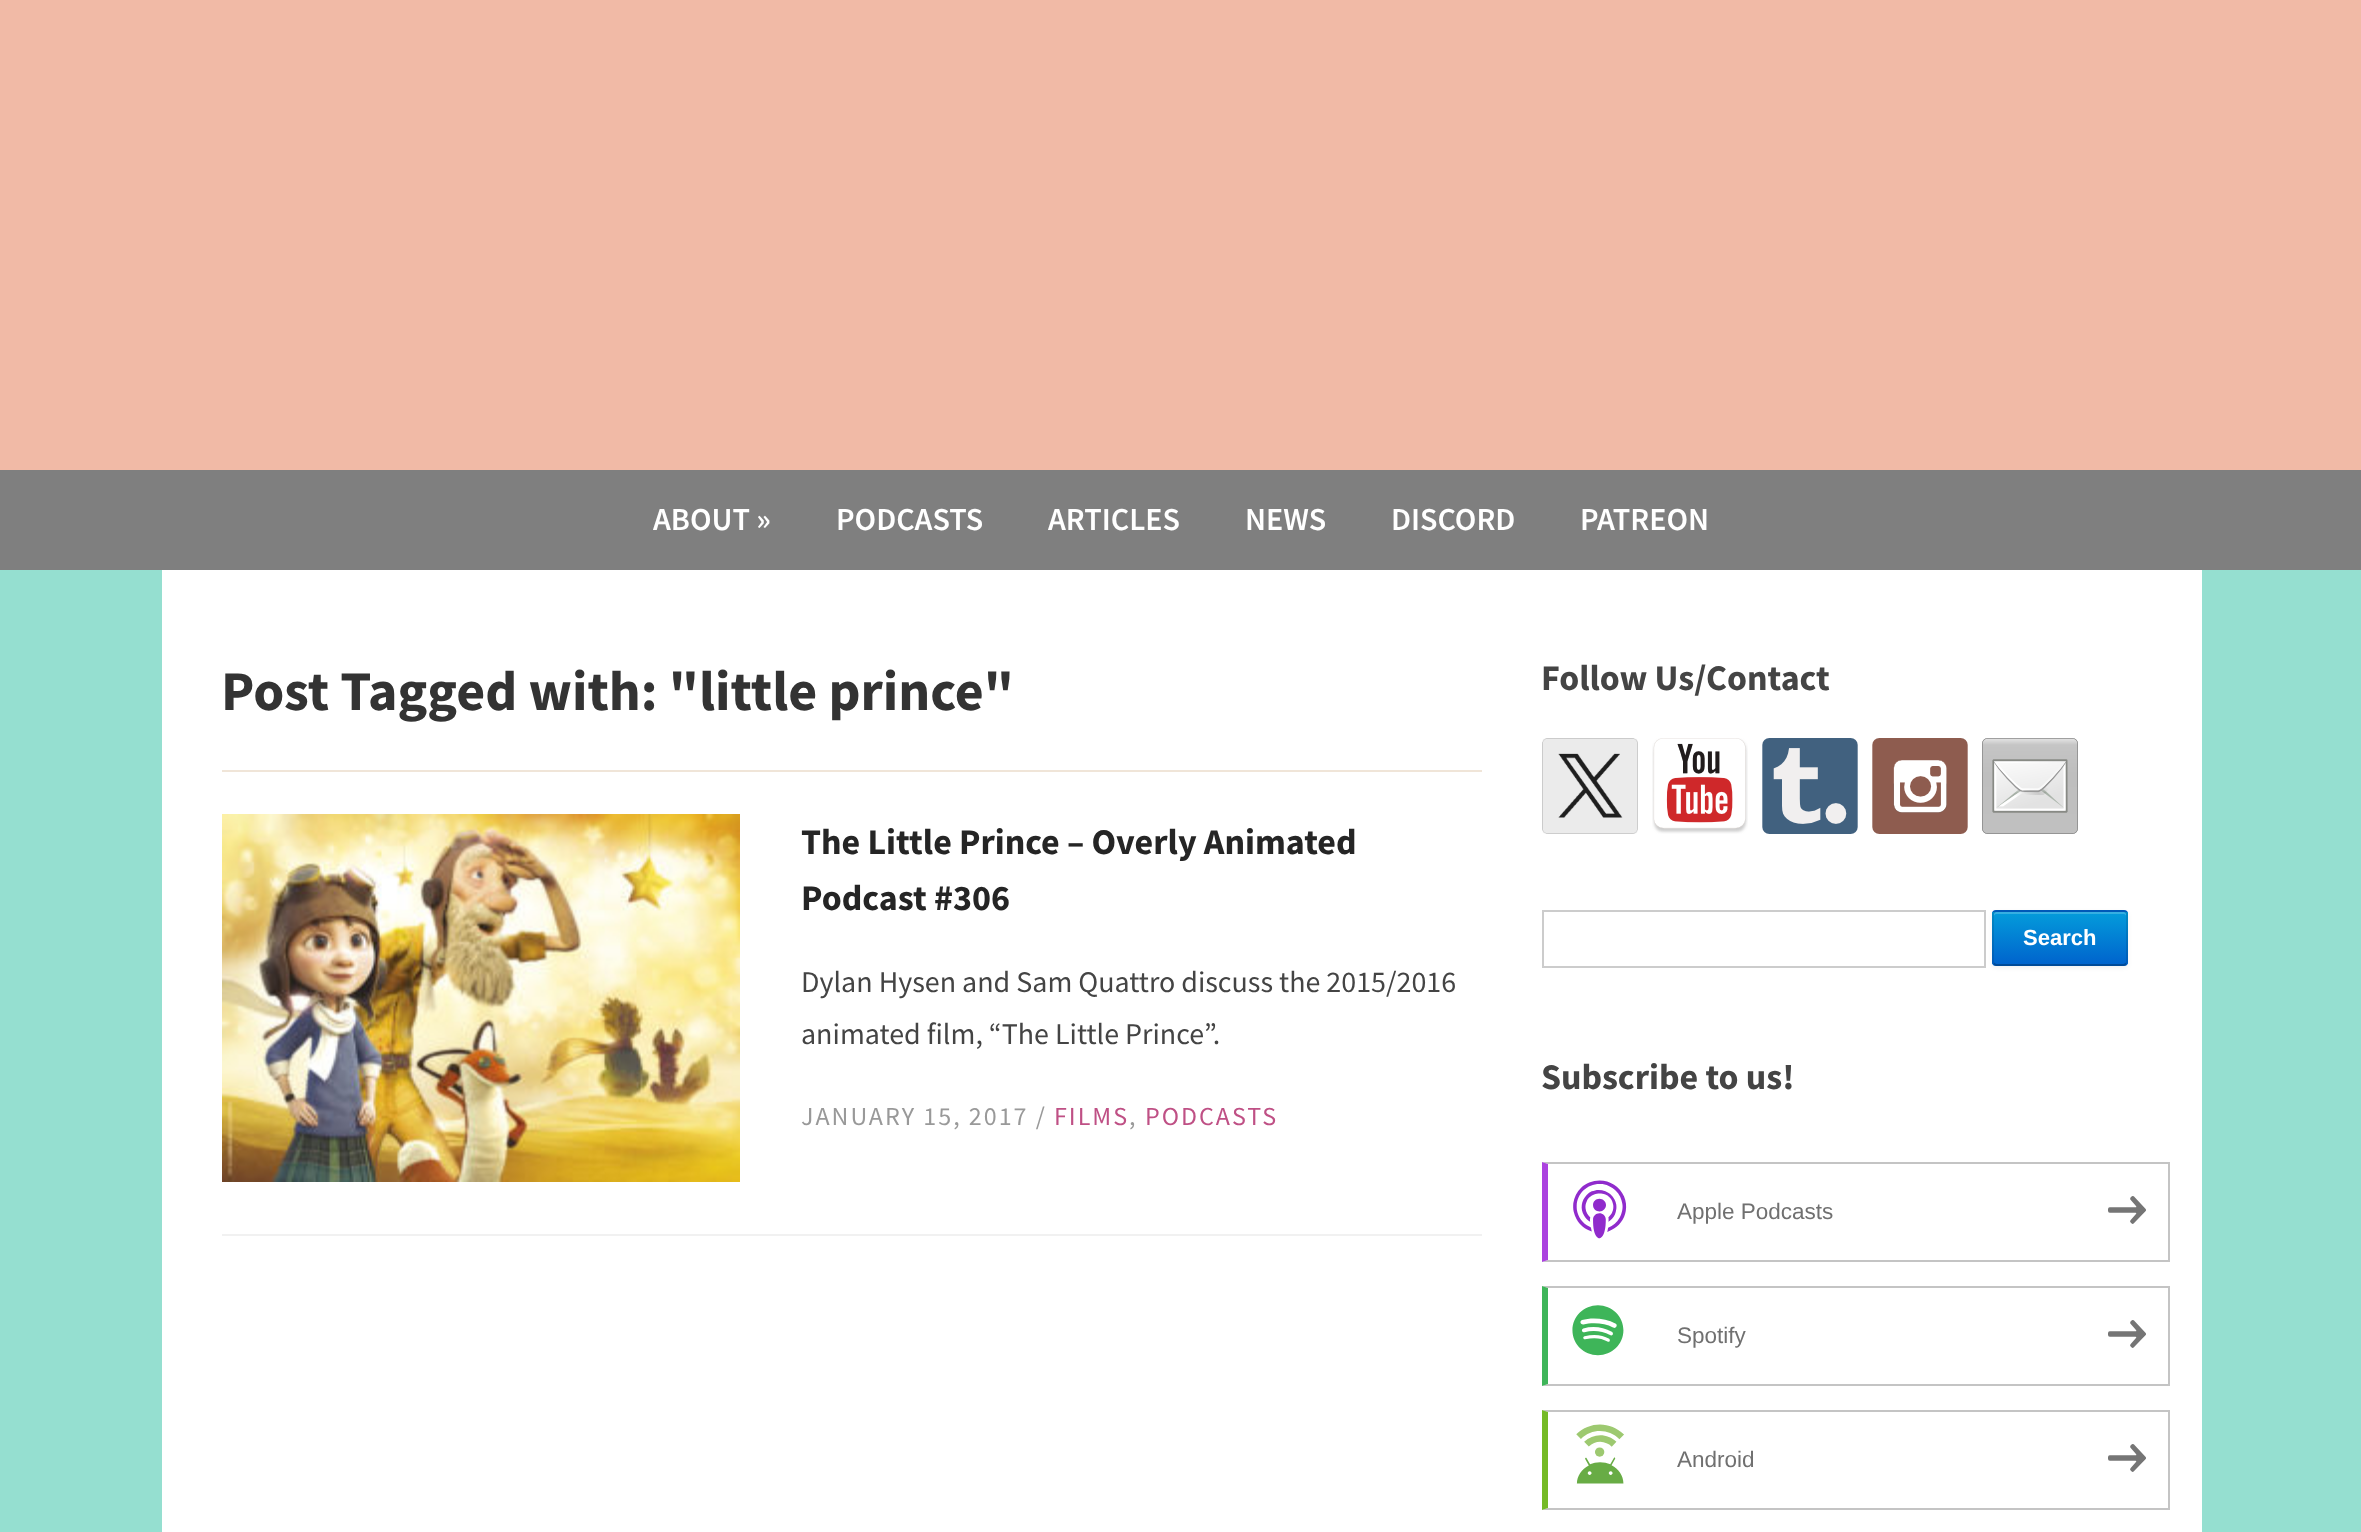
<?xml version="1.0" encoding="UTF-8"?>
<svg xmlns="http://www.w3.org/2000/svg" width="2361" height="1532">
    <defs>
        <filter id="blur1" x="-50%" y="-200%" width="200%" height="500%"><feGaussianBlur stdDeviation="2"/></filter>
        <clipPath id="clip1"><rect x="1992" y="910" width="136" height="56" rx="4"/></clipPath>
        <linearGradient id="g1" gradientUnits="userSpaceOnUse" x1="2060" y1="912" x2="2060" y2="964"><stop offset="0" stop-color="#049CDB"/><stop offset="1" stop-color="#0064CD"/></linearGradient>
    </defs>
    <rect width="100%" height="100%" fill="#95DFD0"/>
    <rect x="0" y="0" width="2361" height="470" fill="#F1BAA6"/>
    <rect x="0" y="470" width="2361" height="100" fill="#7F7F7F"/>
    <text x="653" y="530" font-family="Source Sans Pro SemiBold" font-size="32" font-weight="600" fill="#FFFFFF">ABOUT »</text>
    <text x="836" y="530" font-family="Source Sans Pro SemiBold" font-size="32" font-weight="600" fill="#FFFFFF">PODCASTS</text>
    <text x="1048" y="530" font-family="Source Sans Pro SemiBold" font-size="32" font-weight="600" fill="#FFFFFF">ARTICLES</text>
    <text x="1245" y="530" font-family="Source Sans Pro SemiBold" font-size="32" font-weight="600" fill="#FFFFFF">NEWS</text>
    <text x="1391" y="530" font-family="Source Sans Pro SemiBold" font-size="32" font-weight="600" fill="#FFFFFF">DISCORD</text>
    <text x="1580" y="530" font-family="Source Sans Pro SemiBold" font-size="32" font-weight="600" fill="#FFFFFF">PATREON</text>
    <rect x="162" y="570" width="2040" height="962" fill="#FFFFFF"/>
    <text x="221" y="710" font-family="Source Sans Pro" font-size="56" font-weight="700" fill="#333333">Post Tagged with: "little prince"</text>
    <rect x="222" y="770" width="1260" height="2" fill="#F0E5D8"/>
    <rect x="222" y="1234" width="1260" height="2" fill="#F1F1F1"/>
    <image x="222" y="814" width="518" height="368" href="img_01.png"/>
    <text font-family="Source Sans Pro" font-size="36" font-weight="700" fill="#252525">
        <tspan x="801" y="854">The Little Prince – Overly Animated</tspan>
        <tspan x="801" y="910">Podcast #306</tspan>
    </text>
    <text font-family="Source Sans Pro" font-size="30" fill="#444444">
        <tspan x="801" y="992">Dylan Hysen and Sam Quattro discuss the 2015/2016</tspan>
        <tspan x="801" y="1044">animated film, “The Little Prince”.</tspan>
    </text>
    <text x="801" y="1125" font-family="Source Sans Pro" font-size="26" letter-spacing="2" fill="#999999">JANUARY 15, 2017 /</text>
    <text x="1054" y="1125" font-family="Source Sans Pro" font-size="26" letter-spacing="2" fill="#BF5085">FILMS</text>
    <text x="1129" y="1125" font-family="Source Sans Pro" font-size="26" letter-spacing="2" fill="#999999">,</text>
    <text x="1145" y="1125" font-family="Source Sans Pro" font-size="26" letter-spacing="2" fill="#BF5085">PODCASTS</text>
    <text x="1541" y="690" font-family="Source Sans Pro" font-size="36" font-weight="700" fill="#444444">Follow Us/Contact</text>
    <image x="1542" y="738" width="96" height="96" href="img_02.png"/>
    <image x="1652" y="738" width="96" height="96" href="img_03.png"/>
    <image x="1762" y="738" width="96" height="96" href="img_04.png"/>
    <image x="1872" y="738" width="96" height="96" href="img_05.png"/>
    <image x="1982" y="738" width="96" height="96" href="img_06.png"/>
    <rect x="1543" y="911" width="442" height="56" fill="none" stroke="#CCCCCC" stroke-width="2"/>
    <rect x="1992" y="912" width="136" height="56" rx="4" fill="#000000" fill-opacity="0.05" filter="url(#blur1)"/>
    <rect x="1992" y="910" width="136" height="56" rx="4" fill="#0064CD"/>
    <g clip-path="url(#clip1)">
        <rect x="1992" y="912" width="136" height="52" fill="url(#g1)"/>
    </g>
    <path d="M 1996 914 H 2124 C 2125 914 2126 915 2126 916 V 914 C 2126 913 2125 912 2124 912 H 1996 C 1995 912 1994 913 1994 914 V 916 C 1994 915 1995 914 1996 914 Z" fill="#36AFE2"/>
    <path d="M 2126 964 L 2124 965 H 1996 L 1994 964" fill="none" stroke="#000000" stroke-opacity="0.25" stroke-width="2"/>
    <path d="M 1994 964 L 1993 962 V 914 L 1994 912 L 1996 911 H 2124 L 2126 912 L 2127 914 V 962 L 2126 964" fill="none" stroke="#000000" stroke-opacity="0.1" stroke-width="2"/>
    <text x="2023" y="945" font-family="Liberation Sans" font-size="22" font-weight="700" fill="#FFFFFF">Search</text>
    <text x="1541" y="1089" font-family="Source Sans Pro" font-size="36" font-weight="700" fill="#444444">Subscribe to us!</text>
    <path d="M 1542 1162 H 2170 L 2168 1164 H 1548 Z" fill="#C4C4C4"/>
    <rect x="2168" y="1162" width="2" height="100" fill="#C4C4C4"/>
    <path d="M 2170 1262 H 1542 L 1548 1260 H 2168 Z" fill="#C4C4C4"/>
    <path d="M 1542 1262 V 1162 L 1548 1164 V 1260 Z" fill="#AB42DF"/>
    <image x="1573" y="1180" width="54" height="59" href="img_07.png"/>
    <text x="1677" y="1219" font-family="Liberation Sans" font-size="22.5" fill="#707070">Apple Podcasts</text>
    <image x="2108" y="1196" width="38" height="28" href="img_08.png"/>
    <path d="M 1542 1286 H 2170 L 2168 1288 H 1548 Z" fill="#C4C4C4"/>
    <rect x="2168" y="1286" width="2" height="100" fill="#C4C4C4"/>
    <path d="M 2170 1386 H 1542 L 1548 1384 H 2168 Z" fill="#C4C4C4"/>
    <path d="M 1542 1386 V 1286 L 1548 1288 V 1384 Z" fill="#3EB559"/>
    <image x="1572" y="1305" width="52" height="51" href="img_09.png"/>
    <text x="1677" y="1343" font-family="Liberation Sans" font-size="22.5" fill="#707070">Spotify</text>
    <image x="2108" y="1320" width="38" height="28" href="img_08.png"/>
    <path d="M 1542 1410 H 2170 L 2168 1412 H 1548 Z" fill="#C4C4C4"/>
    <rect x="2168" y="1410" width="2" height="100" fill="#C4C4C4"/>
    <path d="M 2170 1510 H 1542 L 1548 1508 H 2168 Z" fill="#C4C4C4"/>
    <path d="M 1542 1510 V 1410 L 1548 1412 V 1508 Z" fill="#75BA26"/>
    <image x="1576" y="1424" width="48" height="60" href="img_10.png"/>
    <text x="1677" y="1467" font-family="Liberation Sans" font-size="22.5" fill="#707070">Android</text>
    <image x="2108" y="1444" width="38" height="28" href="img_08.png"/>
</svg>
